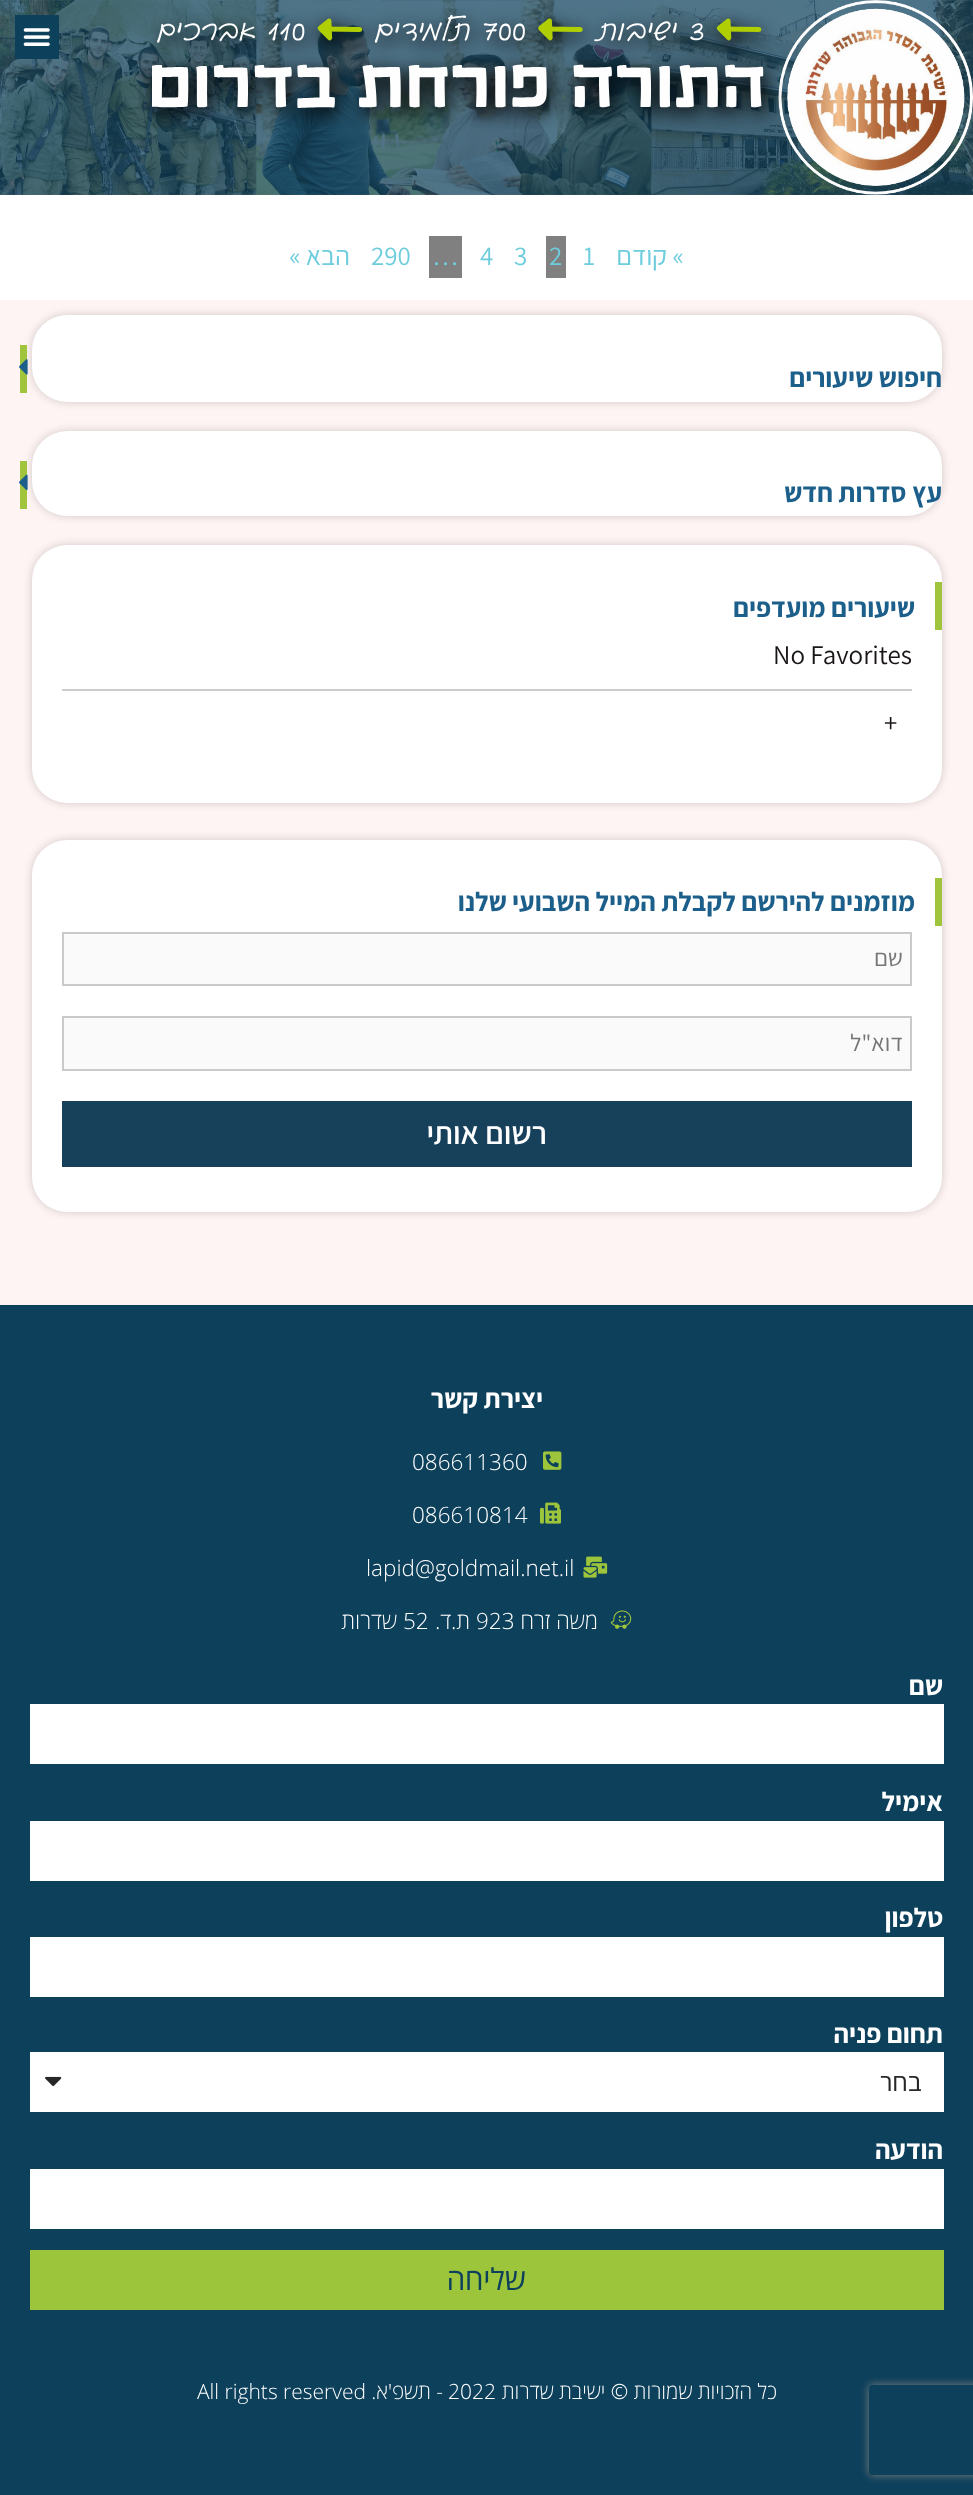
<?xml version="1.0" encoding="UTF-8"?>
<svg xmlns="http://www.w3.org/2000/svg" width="973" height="2495">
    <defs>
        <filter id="blur1" x="-50%" y="-200%" width="200%" height="500%"><feGaussianBlur stdDeviation="4"/></filter>
        <clipPath id="clip1"><path d="M 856 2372 H 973 V 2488 H 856 Z M 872 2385 H 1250 C 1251.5 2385 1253 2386.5 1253 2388 V 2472 C 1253 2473.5 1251.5 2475 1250 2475 H 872 C 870.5 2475 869 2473.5 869 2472 V 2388 C 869 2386.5 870.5 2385 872 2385 Z" clip-rule="evenodd"/></clipPath>
    </defs>
    <rect width="100%" height="100%" fill="#FFF4F4"/>
    <rect x="0" y="194" width="973" height="106" fill="#FFFFFF"/>
    <image x="0" y="0" width="973" height="195" href="img_01.png"/>
    <image x="778" y="0" width="195" height="195" href="img_02.png"/>
    <image x="138" y="8" width="644" height="121" href="img_03.png"/>
    <rect x="15" y="15" width="44" height="44" fill="#0D405B"/>
    <image x="23" y="28" width="27" height="18" href="img_04.png"/>
    <text x="684" y="265" font-family="Assistant" font-size="27" direction="rtl" fill="#6ECDDD">» קודם</text>
    <text x="583" y="265" font-family="Assistant" font-size="27" fill="#6ECDDD">1</text>
    <rect x="546" y="236" width="20" height="42" fill="#808080"/>
    <text x="549" y="265" font-family="Assistant" font-size="27" fill="#6ECDDD">2</text>
    <text x="514" y="265" font-family="Assistant" font-size="27" fill="#6ECDDD">3</text>
    <text x="480" y="265" font-family="Assistant" font-size="27" fill="#6ECDDD">4</text>
    <rect x="429" y="236" width="33" height="42" fill="#808080"/>
    <text x="432" y="265" font-family="Assistant" font-size="27" fill="#6ECDDD">…</text>
    <text x="371" y="265" font-family="Assistant" font-size="27" fill="#6ECDDD">290</text>
    <text x="350" y="265" font-family="Assistant" font-size="27" direction="rtl" fill="#6ECDDD">הבא »</text>
    <rect x="32" y="315" width="910" height="87" rx="35" fill="#000000" fill-opacity="0.19" filter="url(#blur1)"/>
    <rect x="32" y="315" width="910" height="87" rx="35" fill="#FFFFFF"/>
    <text x="942" y="387" font-family="Assistant" font-size="27" font-weight="700" direction="rtl" fill="#1C5F8B">חיפוש שיעורים</text>
    <rect x="20" y="345" width="7" height="48" fill="#A0C43C"/>
    <image x="19" y="359" width="9" height="16" href="img_05.png"/>
    <rect x="32" y="431" width="910" height="85" rx="35" fill="#000000" fill-opacity="0.19" filter="url(#blur1)"/>
    <rect x="32" y="431" width="910" height="85" rx="35" fill="#FFFFFF"/>
    <text x="942" y="502" font-family="Assistant" font-size="27" font-weight="700" direction="rtl" fill="#1C5F8B">עץ סדרות חדש</text>
    <rect x="20" y="461" width="7" height="48" fill="#A0C43C"/>
    <image x="19" y="474" width="9" height="16" href="img_06.png"/>
    <rect x="32" y="545" width="910" height="258" rx="35" fill="#000000" fill-opacity="0.19" filter="url(#blur1)"/>
    <rect x="32" y="545" width="910" height="258" rx="35" fill="#FFFFFF"/>
    <rect x="935" y="582" width="7" height="48" fill="#A0C43C"/>
    <text x="915" y="617" font-family="Assistant" font-size="27" font-weight="700" direction="rtl" fill="#1C5F8B">שיעורים מועדפים</text>
    <text x="773" y="664" font-family="Assistant" font-size="27" fill="#1A1616">No Favorites</text>
    <rect x="62" y="689" width="850" height="2" fill="#CCCCCC"/>
    <text x="884" y="732" font-family="Assistant" font-size="27" fill="#1A1616">+</text>
    <rect x="32" y="840" width="910" height="372" rx="35" fill="#000000" fill-opacity="0.19" filter="url(#blur1)"/>
    <rect x="32" y="840" width="910" height="372" rx="35" fill="#FFFFFF"/>
    <rect x="935" y="878" width="7" height="48" fill="#A0C43C"/>
    <text x="915" y="911" font-family="Assistant" font-size="27" font-weight="700" direction="rtl" fill="#1C5F8B">מוזמנים להירשם לקבלת המייל השבועי שלנו</text>
    <rect x="63" y="933" width="848" height="52" fill="#FAFAFA" stroke="#CACACA" stroke-width="2"/>
    <text x="903" y="966" font-family="Assistant" font-size="24" direction="rtl" fill="#757575">שם</text>
    <rect x="63" y="1017" width="848" height="53" fill="#FAFAFA" stroke="#CACACA" stroke-width="2"/>
    <text x="903" y="1051" font-family="Assistant" font-size="24" direction="rtl" fill="#757575">דוא"ל</text>
    <rect x="62" y="1101" width="850" height="66" fill="#17405B"/>
    <text x="547" y="1144" font-family="Assistant" font-size="31.5" font-weight="600" direction="rtl" fill="#FFFFFF">רשום אותי</text>
    <rect x="0" y="1305" width="973" height="1190" fill="#0D405B"/>
    <text x="543" y="1408" font-family="Assistant" font-size="27" font-weight="700" direction="rtl" fill="#FFFFFF">יצירת קשר</text>
    <image x="543" y="1451" width="19" height="19" href="img_07.png"/>
    <text x="412" y="1470" font-family="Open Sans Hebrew" font-size="22.5" font-weight="300" fill="#FFFFFF">086611360</text>
    <image x="540" y="1502" width="21" height="22" href="img_08.png"/>
    <text x="412" y="1523" font-family="Open Sans Hebrew" font-size="22.5" font-weight="300" fill="#FFFFFF">086610814</text>
    <image x="583" y="1556" width="25" height="22" href="img_09.png"/>
    <text x="366" y="1576" font-family="Open Sans Hebrew" font-size="22.5" font-weight="300" fill="#FFFFFF">lapid@goldmail.net.il</text>
    <image x="610" y="1610" width="22" height="19" href="img_10.png"/>
    <text x="598" y="1629" font-family="Open Sans Hebrew" font-size="22.5" font-weight="300" direction="rtl" fill="#FFFFFF">משה זרח</text>
    <text x="476" y="1629" font-family="Open Sans Hebrew" font-size="22.5" font-weight="300" fill="#FFFFFF">923</text>
    <text x="470" y="1629" font-family="Open Sans Hebrew" font-size="22.5" font-weight="300" direction="rtl" fill="#FFFFFF">ת.ד.</text>
    <text x="403" y="1629" font-family="Open Sans Hebrew" font-size="22.5" font-weight="300" fill="#FFFFFF">52</text>
    <text x="397" y="1629" font-family="Open Sans Hebrew" font-size="22.5" font-weight="300" direction="rtl" fill="#FFFFFF">שדרות</text>
    <text x="943" y="1695" font-family="Assistant" font-size="27" font-weight="700" direction="rtl" fill="#FFFFFF">שם</text>
    <rect x="30" y="1704" width="914" height="60" fill="#FFFFFF"/>
    <text x="943" y="1811" font-family="Assistant" font-size="27" font-weight="700" direction="rtl" fill="#FFFFFF">אימיל</text>
    <rect x="30" y="1821" width="914" height="60" fill="#FFFFFF"/>
    <text x="943" y="1927" font-family="Assistant" font-size="27" font-weight="700" direction="rtl" fill="#FFFFFF">טלפון</text>
    <rect x="30" y="1937" width="914" height="60" fill="#FFFFFF"/>
    <text x="943" y="2043" font-family="Assistant" font-size="27" font-weight="700" direction="rtl" fill="#FFFFFF">תחום פניה</text>
    <rect x="30" y="2052" width="914" height="60" fill="#FFFFFF"/>
    <text x="922" y="2091" font-family="Assistant" font-size="27" direction="rtl" fill="#272727">בחר</text>
    <image x="45" y="2076" width="17" height="11" href="img_11.png"/>
    <text x="943" y="2159" font-family="Assistant" font-size="27" font-weight="700" direction="rtl" fill="#FFFFFF">הודעה</text>
    <rect x="30" y="2169" width="914" height="60" fill="#FFFFFF"/>
    <rect x="30" y="2250" width="914" height="60" fill="#9DC53B"/>
    <text x="526" y="2290" font-family="Open Sans Hebrew" font-size="30" direction="rtl" fill="#0D405B">שליחה</text>
    <g clip-path="url(#clip1)">
        <rect x="869" y="2385" width="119" height="90" rx="3" fill="#808080" filter="url(#blur1)"/>
    </g>
    <text x="777" y="2399" font-family="Open Sans Hebrew" font-size="21" font-weight="300" direction="rtl" fill="#FFFFFF">כל הזכויות שמורות © ישיבת שדרות</text>
    <text x="448" y="2399" font-family="Open Sans Hebrew" font-size="21" font-weight="300" fill="#FFFFFF">2022</text>
    <text x="443" y="2399" font-family="Open Sans Hebrew" font-size="21" font-weight="300" direction="rtl" fill="#FFFFFF">- תשפ'א.</text>
    <text x="197" y="2399" font-family="Open Sans Hebrew" font-size="21" font-weight="300" fill="#FFFFFF">All rights reserved</text>
</svg>
